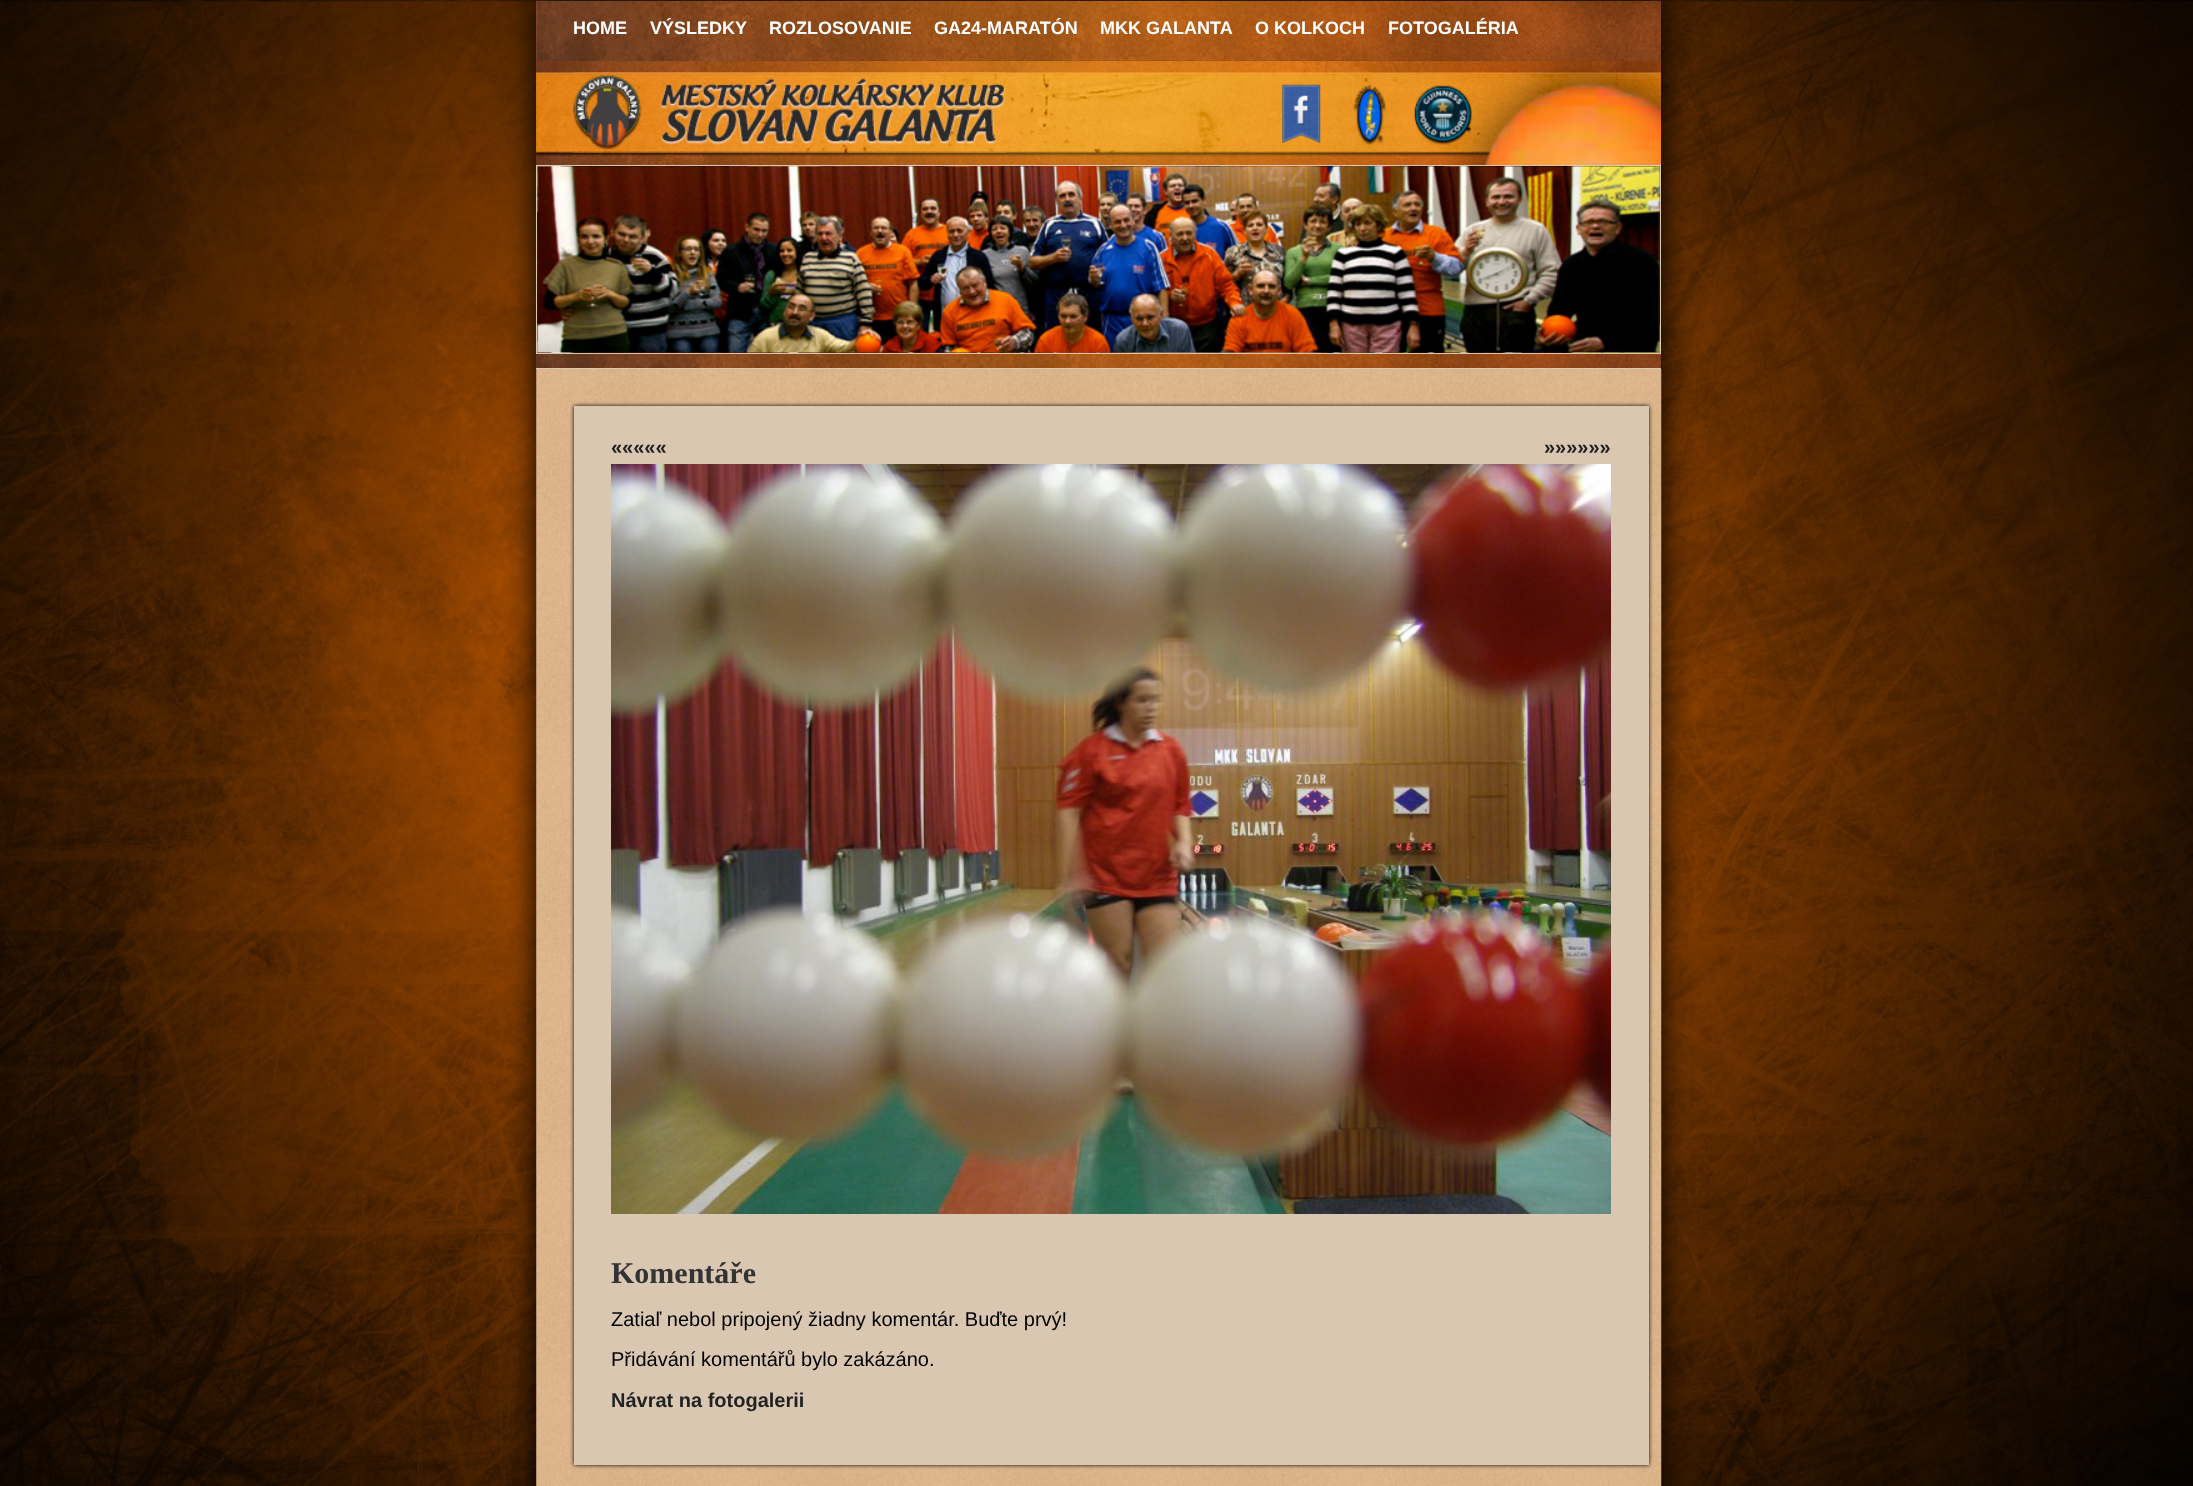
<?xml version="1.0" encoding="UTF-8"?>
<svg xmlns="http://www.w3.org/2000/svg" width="2193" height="1486">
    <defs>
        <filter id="blur1" x="-50%" y="-200%" width="200%" height="500%"><feGaussianBlur stdDeviation="15.5"/></filter>
        <filter id="blur2" x="-50%" y="-200%" width="200%" height="500%"><feGaussianBlur stdDeviation="2"/></filter>
    </defs>
    <rect width="100%" height="100%" fill="#FFFFFF"/>
    <image x="0" y="0" width="2193" height="1486" href="img_01.png"/>
    <rect x="536" y="-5" width="1125" height="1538" fill="#111111" filter="url(#blur1)"/>
    <rect x="536" y="1" width="1" height="60" fill="#AD602A"/>
    <image x="536" y="1" width="1125" height="60" href="img_02.png"/>
    <text x="573" y="34" font-family="Liberation Sans" font-size="18" font-weight="700" fill="#FFFFFF">HOME</text>
    <text x="650" y="34" font-family="Liberation Sans" font-size="18" font-weight="700" fill="#FFFFFF">VÝSLEDKY</text>
    <text x="769" y="34" font-family="Liberation Sans" font-size="18" font-weight="700" fill="#FFFFFF">ROZLOSOVANIE</text>
    <text x="934" y="34" font-family="Liberation Sans" font-size="18" font-weight="700" fill="#FFFFFF">GA24-MARATÓN</text>
    <text x="1100" y="34" font-family="Liberation Sans" font-size="18" font-weight="700" fill="#FFFFFF">MKK GALANTA</text>
    <text x="1255" y="34" font-family="Liberation Sans" font-size="18" font-weight="700" fill="#FFFFFF">O KOLKOCH</text>
    <text x="1388" y="34" font-family="Liberation Sans" font-size="18" font-weight="700" fill="#FFFFFF">FOTOGALÉRIA</text>
    <rect x="536" y="368" width="1125" height="1" fill="#DAC7B2"/>
    <image x="536" y="61" width="1125" height="307" href="img_03.png"/>
    <image x="573" y="72" width="434" height="81" href="img_04.png"/>
    <image x="1282" y="84" width="39" height="59" href="img_05.png"/>
    <image x="1352" y="73" width="34" height="79" href="img_06.png"/>
    <image x="1413" y="73" width="60" height="79" href="img_07.png"/>
    <image x="537" y="166" width="1123" height="187" href="img_08.png"/>
    <rect x="536.5" y="165.5" width="1124" height="188" fill="none" stroke="#DAC7B2"/>
    <image x="536" y="369" width="1126" height="1117" href="img_09.png"/>
    <rect x="574" y="406" width="1075" height="1059" fill="#111111" filter="url(#blur2)"/>
    <rect x="574" y="406" width="1075" height="1059" fill="#DAC7B2"/>
    <text x="611" y="454" font-family="Liberation Sans" font-size="20" font-weight="700" fill="#222222">«««««</text>
    <text x="1544" y="454" font-family="Liberation Sans" font-size="20" font-weight="700" fill="#222222">»»»»»»</text>
    <image x="611" y="464" width="1000" height="750" href="img_10.png"/>
    <text x="611" y="1283" font-family="Liberation Serif" font-size="30" font-weight="700" fill="#333333">Komentáře</text>
    <text x="611" y="1326" font-family="Liberation Sans" font-size="20" fill="#000000">Zatiaľ nebol pripojený žiadny komentár. Buďte prvý!</text>
    <text x="611" y="1366" font-family="Liberation Sans" font-size="20" fill="#000000">Přidávání komentářů bylo zakázáno.</text>
    <text x="611" y="1407" font-family="Liberation Sans" font-size="20" font-weight="700" fill="#222222">Návrat na fotogalerii</text>
</svg>
